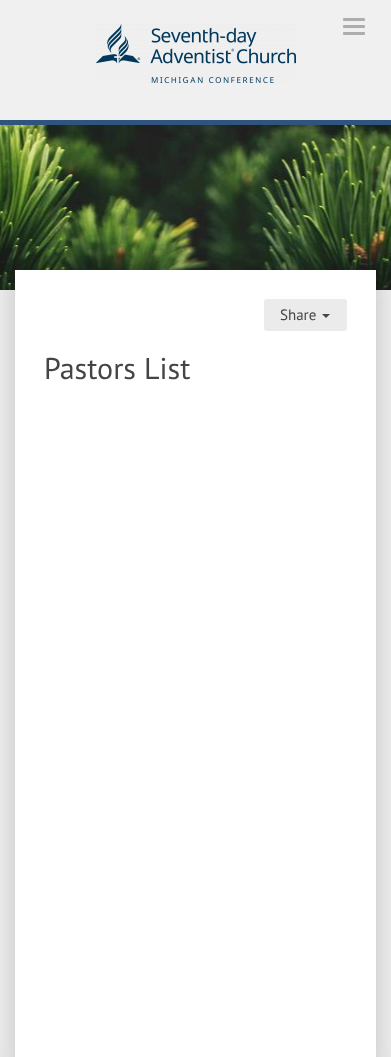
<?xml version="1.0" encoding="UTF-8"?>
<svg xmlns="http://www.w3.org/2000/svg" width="391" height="1057">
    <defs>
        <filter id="blur1" x="-50%" y="-200%" width="200%" height="500%"><feGaussianBlur stdDeviation="16"/></filter>
    </defs>
    <rect width="100%" height="100%" fill="#F0F0F0"/>
    <image x="96" y="24" width="200" height="59" href="img_01.png"/>
    <rect x="343" y="18" width="22" height="3" rx="1" fill="#ADADAD"/>
    <rect x="343" y="25" width="22" height="3" rx="1" fill="#ADADAD"/>
    <rect x="343" y="32" width="22" height="3" rx="1" fill="#ADADAD"/>
    <rect x="0" y="120" width="391" height="5" fill="#2F557F"/>
    <image x="0" y="125" width="391" height="165" href="img_02.png"/>
    <rect x="15" y="270" width="361" height="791" fill="#2D2D2D" fill-opacity="0.2" filter="url(#blur1)"/>
    <rect x="15" y="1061" width="361" height="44" fill="#2D2D2D" fill-opacity="0.2" filter="url(#blur1)"/>
    <rect x="15" y="270" width="361" height="787" fill="#FFFFFF"/>
    <rect x="264" y="299" width="83" height="32" rx="3" fill="#EBEBEB"/>
    <text x="280" y="320" font-family="PT Sans" font-size="15" fill="#454545">Share</text>
    <path d="M 322 314 H 330 L 326 318 Z" fill="#454545"/>
    <text x="44" y="379" font-family="PT Sans" font-size="30" fill="#454545">Pastors List</text>
</svg>
